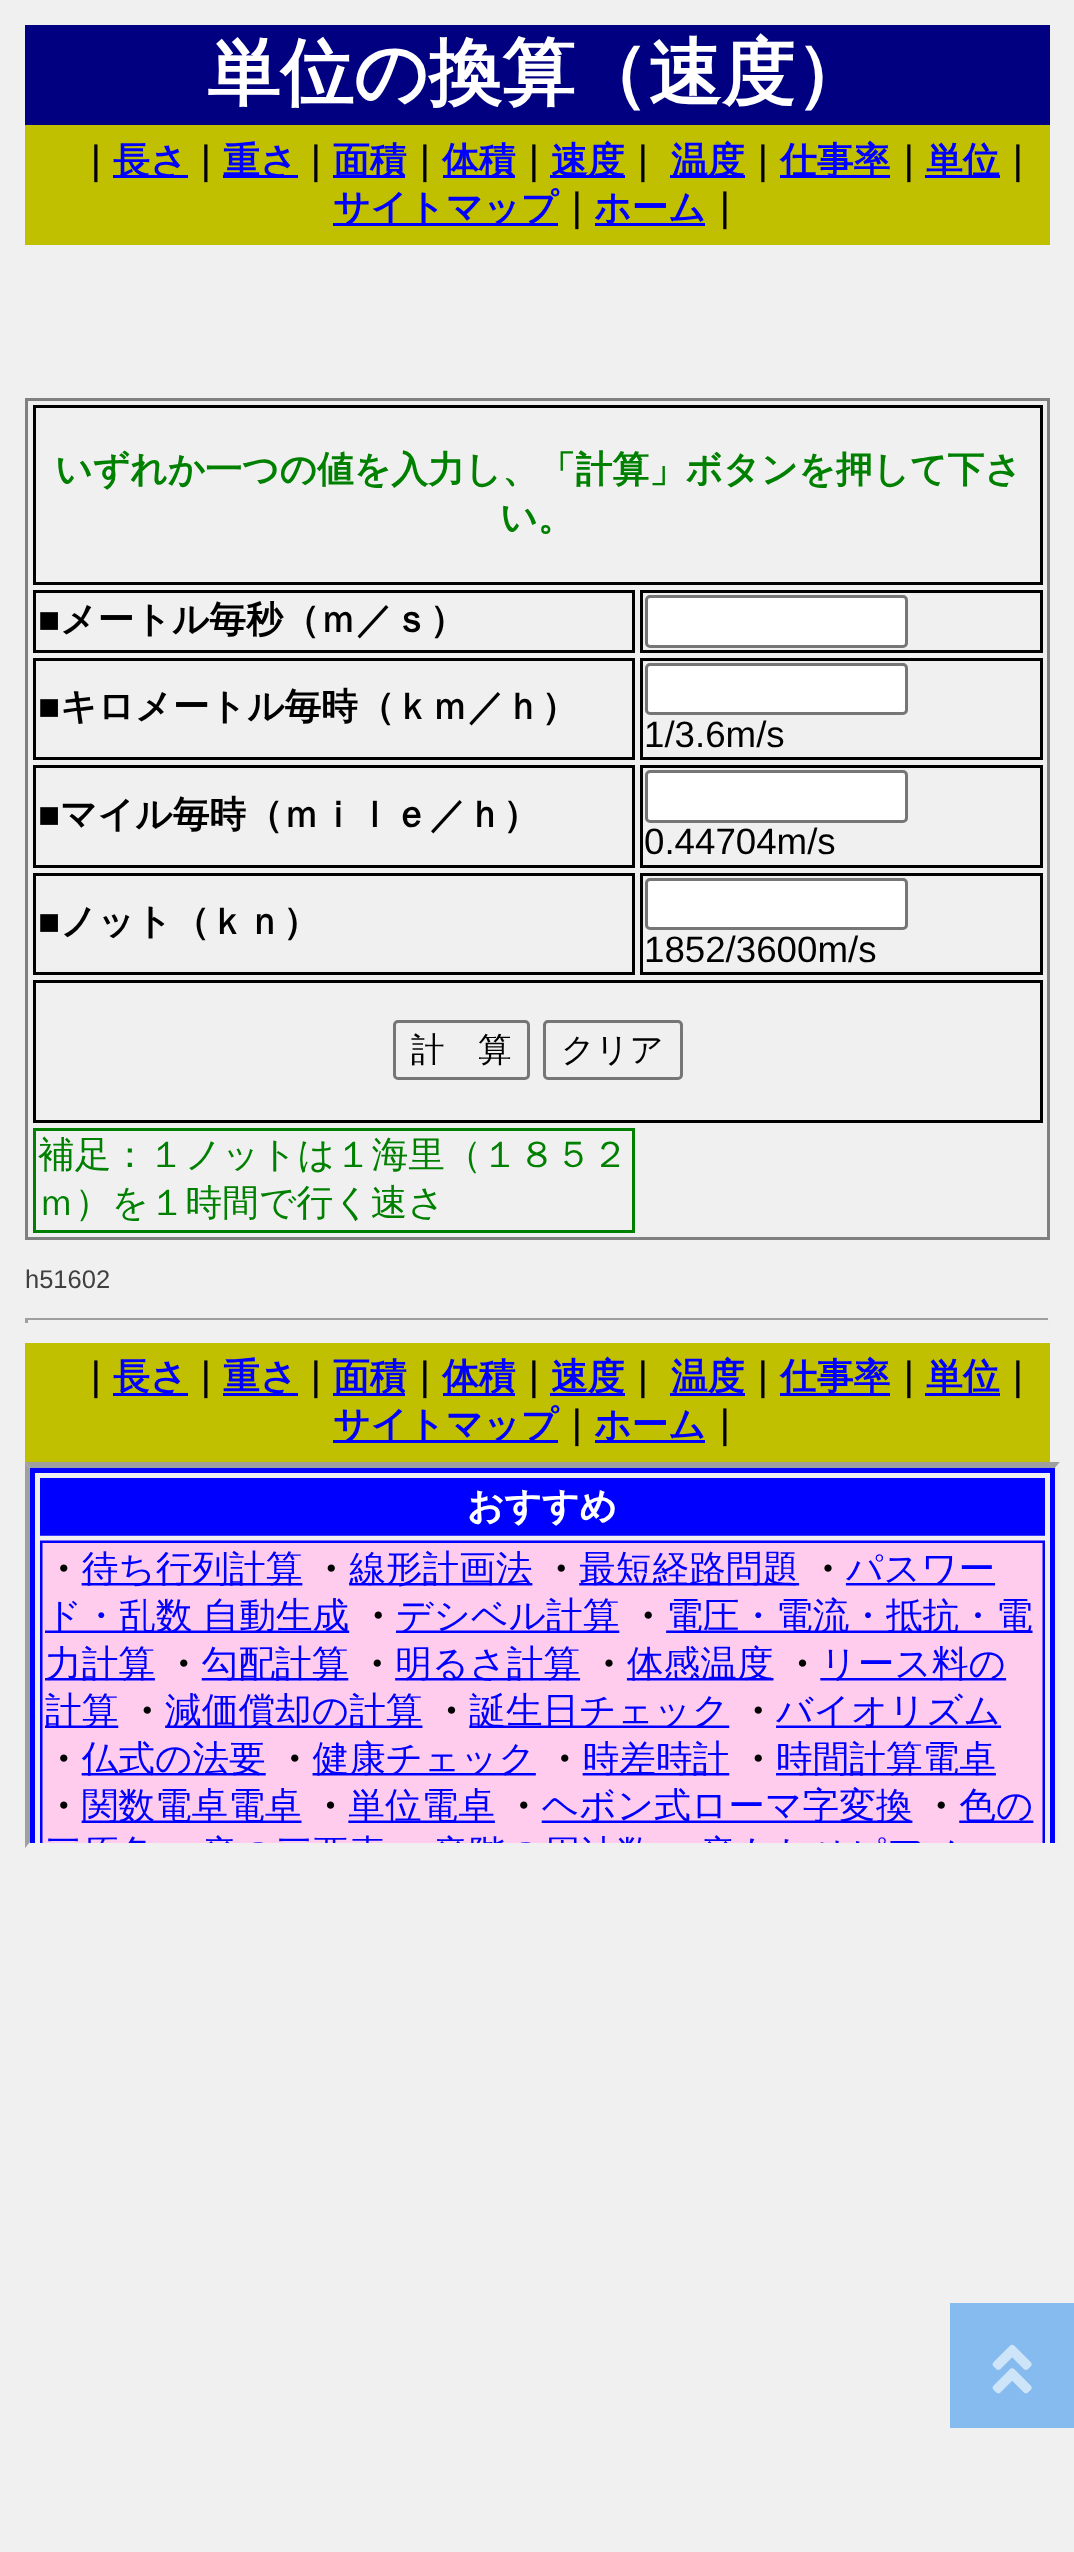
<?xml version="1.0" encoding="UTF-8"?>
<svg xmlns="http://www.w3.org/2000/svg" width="1074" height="2552">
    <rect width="100%" height="100%" fill="#F0F0F0"/>
    <rect x="25" y="25" width="1025" height="100" fill="#000080"/>
    <text x="207" y="98" font-family="WenQuanYi Zen Hei" font-size="73.25" font-weight="700" fill="#FFFFFF">単位の換算（速度）</text>
    <rect x="25" y="125" width="1025" height="120" fill="#C0C000"/>
    <text x="77" y="173" font-family="WenQuanYi Zen Hei" font-size="36.7" font-weight="700" fill="#000000">｜</text>
    <rect x="113" y="175" width="75" height="3" fill="#0000FF"/>
    <text x="113" y="173" font-family="WenQuanYi Zen Hei" font-size="36.7" font-weight="700" fill="#0000FF">長さ</text>
    <text x="187" y="173" font-family="WenQuanYi Zen Hei" font-size="36.7" font-weight="700" fill="#000000">｜</text>
    <rect x="223" y="175" width="75" height="3" fill="#0000FF"/>
    <text x="223" y="173" font-family="WenQuanYi Zen Hei" font-size="36.7" font-weight="700" fill="#0000FF">重さ</text>
    <text x="297" y="173" font-family="WenQuanYi Zen Hei" font-size="36.7" font-weight="700" fill="#000000">｜</text>
    <rect x="333" y="175" width="72" height="3" fill="#0000FF"/>
    <text x="333" y="173" font-family="WenQuanYi Zen Hei" font-size="36.7" font-weight="700" fill="#0000FF">面積</text>
    <text x="406" y="173" font-family="WenQuanYi Zen Hei" font-size="36.7" font-weight="700" fill="#000000">｜</text>
    <rect x="443" y="175" width="72" height="3" fill="#0000FF"/>
    <text x="442" y="173" font-family="WenQuanYi Zen Hei" font-size="36.7" font-weight="700" fill="#0000FF">体積</text>
    <text x="515" y="173" font-family="WenQuanYi Zen Hei" font-size="36.7" font-weight="700" fill="#000000">｜</text>
    <rect x="550" y="175" width="75" height="3" fill="#0000FF"/>
    <text x="551" y="173" font-family="WenQuanYi Zen Hei" font-size="36.7" font-weight="700" fill="#0000FF">速度</text>
    <text x="624" y="173" font-family="WenQuanYi Zen Hei" font-size="36.7" font-weight="700" fill="#000000">｜</text>
    <rect x="670" y="175" width="75" height="3" fill="#0000FF"/>
    <text x="671" y="173" font-family="WenQuanYi Zen Hei" font-size="36.7" font-weight="700" fill="#0000FF">温度</text>
    <text x="744" y="173" font-family="WenQuanYi Zen Hei" font-size="36.7" font-weight="700" fill="#000000">｜</text>
    <rect x="780" y="175" width="110" height="3" fill="#0000FF"/>
    <text x="780" y="173" font-family="WenQuanYi Zen Hei" font-size="36.7" font-weight="700" fill="#0000FF">仕事率</text>
    <text x="890" y="173" font-family="WenQuanYi Zen Hei" font-size="36.7" font-weight="700" fill="#000000">｜</text>
    <rect x="925" y="175" width="75" height="3" fill="#0000FF"/>
    <text x="926" y="173" font-family="WenQuanYi Zen Hei" font-size="36.7" font-weight="700" fill="#0000FF">単位</text>
    <text x="999" y="173" font-family="WenQuanYi Zen Hei" font-size="36.7" font-weight="700" fill="#000000">｜</text>
    <rect x="333" y="223" width="225" height="3" fill="#0000FF"/>
    <text x="333" y="220" font-family="WenQuanYi Zen Hei" font-size="36.7" font-weight="700" fill="#0000FF">サイトマップ</text>
    <text x="558" y="220" font-family="WenQuanYi Zen Hei" font-size="36.7" font-weight="700" fill="#000000">｜</text>
    <rect x="595" y="223" width="110" height="3" fill="#0000FF"/>
    <text x="594" y="220" font-family="WenQuanYi Zen Hei" font-size="36.7" font-weight="700" fill="#0000FF">ホーム</text>
    <text x="706" y="220" font-family="WenQuanYi Zen Hei" font-size="36.7" font-weight="700" fill="#000000">｜</text>
    <rect x="26.5" y="399.5" width="1022" height="839" fill="none" stroke="#808080" stroke-width="3"/>
    <rect x="34.5" y="406.5" width="1007" height="177" fill="none" stroke="#000000" stroke-width="3"/>
    <text x="55" y="482" font-family="WenQuanYi Zen Hei" font-size="36.7" font-weight="700" fill="#008000">いずれか一つの値を入力し、「計算」ボタンを押して下さ</text>
    <text x="500" y="530" font-family="WenQuanYi Zen Hei" font-size="36.7" font-weight="700" fill="#008000">い。</text>
    <rect x="34.5" y="591.5" width="599" height="60" fill="none" stroke="#000000" stroke-width="3"/>
    <text x="38" y="632" font-family="Liberation Sans" font-size="36.7" font-weight="700" fill="#000000">■</text>
    <text x="60" y="632" font-family="WenQuanYi Zen Hei" font-size="36.7" font-weight="700" fill="#000000">メートル毎秒（ｍ／ｓ）</text>
    <rect x="641.5" y="591.5" width="400" height="60" fill="none" stroke="#000000" stroke-width="3"/>
    <rect x="646.5" y="596.5" width="260" height="50" rx="3.5" fill="#FFFFFF" stroke="#767676" stroke-width="3"/>
    <rect x="34.5" y="659.5" width="599" height="99" fill="none" stroke="#000000" stroke-width="3"/>
    <text x="38" y="719" font-family="Liberation Sans" font-size="36.7" font-weight="700" fill="#000000">■</text>
    <text x="60" y="719" font-family="WenQuanYi Zen Hei" font-size="36.7" font-weight="700" fill="#000000">キロメートル毎時（ｋｍ／ｈ）</text>
    <rect x="641.5" y="659.5" width="400" height="99" fill="none" stroke="#000000" stroke-width="3"/>
    <rect x="646.5" y="664.5" width="260" height="49" rx="3.5" fill="#FFFFFF" stroke="#767676" stroke-width="3"/>
    <text x="644" y="747" font-family="Liberation Sans" font-size="36.7" fill="#000000">1/3.6m/s</text>
    <rect x="34.5" y="766.5" width="599" height="100" fill="none" stroke="#000000" stroke-width="3"/>
    <text x="38" y="827" font-family="Liberation Sans" font-size="36.7" font-weight="700" fill="#000000">■</text>
    <text x="60" y="827" font-family="WenQuanYi Zen Hei" font-size="36.7" font-weight="700" fill="#000000">マイル毎時（ｍｉｌｅ／ｈ）</text>
    <rect x="641.5" y="766.5" width="400" height="100" fill="none" stroke="#000000" stroke-width="3"/>
    <rect x="646.5" y="771.5" width="260" height="50" rx="3.5" fill="#FFFFFF" stroke="#767676" stroke-width="3"/>
    <text x="644" y="854" font-family="Liberation Sans" font-size="36.7" fill="#000000">0.44704m/s</text>
    <rect x="34.5" y="874.5" width="599" height="99" fill="none" stroke="#000000" stroke-width="3"/>
    <text x="38" y="934" font-family="Liberation Sans" font-size="36.7" font-weight="700" fill="#000000">■</text>
    <text x="60" y="934" font-family="WenQuanYi Zen Hei" font-size="36.7" font-weight="700" fill="#000000">ノット（ｋｎ）</text>
    <rect x="641.5" y="874.5" width="400" height="99" fill="none" stroke="#000000" stroke-width="3"/>
    <rect x="646.5" y="879.5" width="260" height="49" rx="3.5" fill="#FFFFFF" stroke="#767676" stroke-width="3"/>
    <text x="644" y="962" font-family="Liberation Sans" font-size="36.7" fill="#000000">1852/3600m/s</text>
    <rect x="34.5" y="981.5" width="1007" height="140" fill="none" stroke="#000000" stroke-width="3"/>
    <rect x="394.5" y="1021.5" width="134" height="57" rx="3.5" fill="none" stroke="#767676" stroke-width="3"/>
    <text x="411" y="1061" font-family="WenQuanYi Zen Hei" font-size="33.5" font-weight="500" fill="#000000">計　算</text>
    <rect x="544.5" y="1021.5" width="137" height="57" rx="3.5" fill="none" stroke="#767676" stroke-width="3"/>
    <text x="561" y="1061" font-family="WenQuanYi Zen Hei" font-size="33.5" font-weight="500" fill="#000000">クリア</text>
    <rect x="34.5" y="1129.5" width="599" height="102" fill="none" stroke="#008000" stroke-width="3"/>
    <text font-family="WenQuanYi Zen Hei" font-size="36.7" font-weight="500" fill="#008000">
        <tspan x="38" y="1167">補足：１ノットは１海里（１８５２</tspan>
        <tspan x="38" y="1215">ｍ）を１時間で行く速さ</tspan>
    </text>
    <text x="25" y="1288" font-family="Liberation Sans" font-size="25.5" fill="#404040">h51602</text>
    <rect x="25" y="1318" width="1025" height="2" fill="#9F9F9F"/>
    <rect x="1048" y="1318" width="2" height="5" fill="#EEEEEE"/>
    <rect x="25" y="1318" width="3" height="5" fill="#9F9F9F"/>
    <rect x="25" y="1343" width="1025" height="120" fill="#C0C000"/>
    <text x="77" y="1389" font-family="WenQuanYi Zen Hei" font-size="36.7" font-weight="700" fill="#000000">｜</text>
    <rect x="113" y="1393" width="75" height="3" fill="#0000FF"/>
    <text x="113" y="1389" font-family="WenQuanYi Zen Hei" font-size="36.7" font-weight="700" fill="#0000FF">長さ</text>
    <text x="187" y="1389" font-family="WenQuanYi Zen Hei" font-size="36.7" font-weight="700" fill="#000000">｜</text>
    <rect x="223" y="1393" width="75" height="3" fill="#0000FF"/>
    <text x="223" y="1389" font-family="WenQuanYi Zen Hei" font-size="36.7" font-weight="700" fill="#0000FF">重さ</text>
    <text x="297" y="1389" font-family="WenQuanYi Zen Hei" font-size="36.7" font-weight="700" fill="#000000">｜</text>
    <rect x="333" y="1393" width="72" height="3" fill="#0000FF"/>
    <text x="333" y="1389" font-family="WenQuanYi Zen Hei" font-size="36.7" font-weight="700" fill="#0000FF">面積</text>
    <text x="406" y="1389" font-family="WenQuanYi Zen Hei" font-size="36.7" font-weight="700" fill="#000000">｜</text>
    <rect x="443" y="1393" width="72" height="3" fill="#0000FF"/>
    <text x="442" y="1389" font-family="WenQuanYi Zen Hei" font-size="36.7" font-weight="700" fill="#0000FF">体積</text>
    <text x="515" y="1389" font-family="WenQuanYi Zen Hei" font-size="36.7" font-weight="700" fill="#000000">｜</text>
    <rect x="550" y="1393" width="75" height="3" fill="#0000FF"/>
    <text x="551" y="1389" font-family="WenQuanYi Zen Hei" font-size="36.7" font-weight="700" fill="#0000FF">速度</text>
    <text x="624" y="1389" font-family="WenQuanYi Zen Hei" font-size="36.7" font-weight="700" fill="#000000">｜</text>
    <rect x="670" y="1393" width="75" height="3" fill="#0000FF"/>
    <text x="671" y="1389" font-family="WenQuanYi Zen Hei" font-size="36.7" font-weight="700" fill="#0000FF">温度</text>
    <text x="744" y="1389" font-family="WenQuanYi Zen Hei" font-size="36.7" font-weight="700" fill="#000000">｜</text>
    <rect x="780" y="1393" width="110" height="3" fill="#0000FF"/>
    <text x="780" y="1389" font-family="WenQuanYi Zen Hei" font-size="36.7" font-weight="700" fill="#0000FF">仕事率</text>
    <text x="890" y="1389" font-family="WenQuanYi Zen Hei" font-size="36.7" font-weight="700" fill="#000000">｜</text>
    <rect x="925" y="1393" width="75" height="3" fill="#0000FF"/>
    <text x="926" y="1389" font-family="WenQuanYi Zen Hei" font-size="36.7" font-weight="700" fill="#0000FF">単位</text>
    <text x="999" y="1389" font-family="WenQuanYi Zen Hei" font-size="36.7" font-weight="700" fill="#000000">｜</text>
    <rect x="333" y="1440" width="225" height="3" fill="#0000FF"/>
    <text x="333" y="1437" font-family="WenQuanYi Zen Hei" font-size="36.7" font-weight="700" fill="#0000FF">サイトマップ</text>
    <text x="558" y="1437" font-family="WenQuanYi Zen Hei" font-size="36.7" font-weight="700" fill="#000000">｜</text>
    <rect x="595" y="1440" width="110" height="3" fill="#0000FF"/>
    <text x="594" y="1437" font-family="WenQuanYi Zen Hei" font-size="36.7" font-weight="700" fill="#0000FF">ホーム</text>
    <text x="706" y="1437" font-family="WenQuanYi Zen Hei" font-size="36.7" font-weight="700" fill="#000000">｜</text>
    <path d="M 25 1462 H 1060 L 1055 1468 H 30 Z" fill="#9F9F9F"/>
    <path d="M 25 1848 V 1462 L 30 1468 V 1842 Z" fill="#9F9F9F"/>
    <image x="30" y="1468" width="1025" height="375" href="img_01.png"/>
    <path d="M 1060 1462 V 1848 L 1055 1842 V 1468 Z" fill="#EEEEEE"/>
    <rect x="950" y="2303" width="124" height="125" fill="#86BBEF"/>
    <image x="992" y="2344" width="40" height="50" href="img_02.png"/>
</svg>
